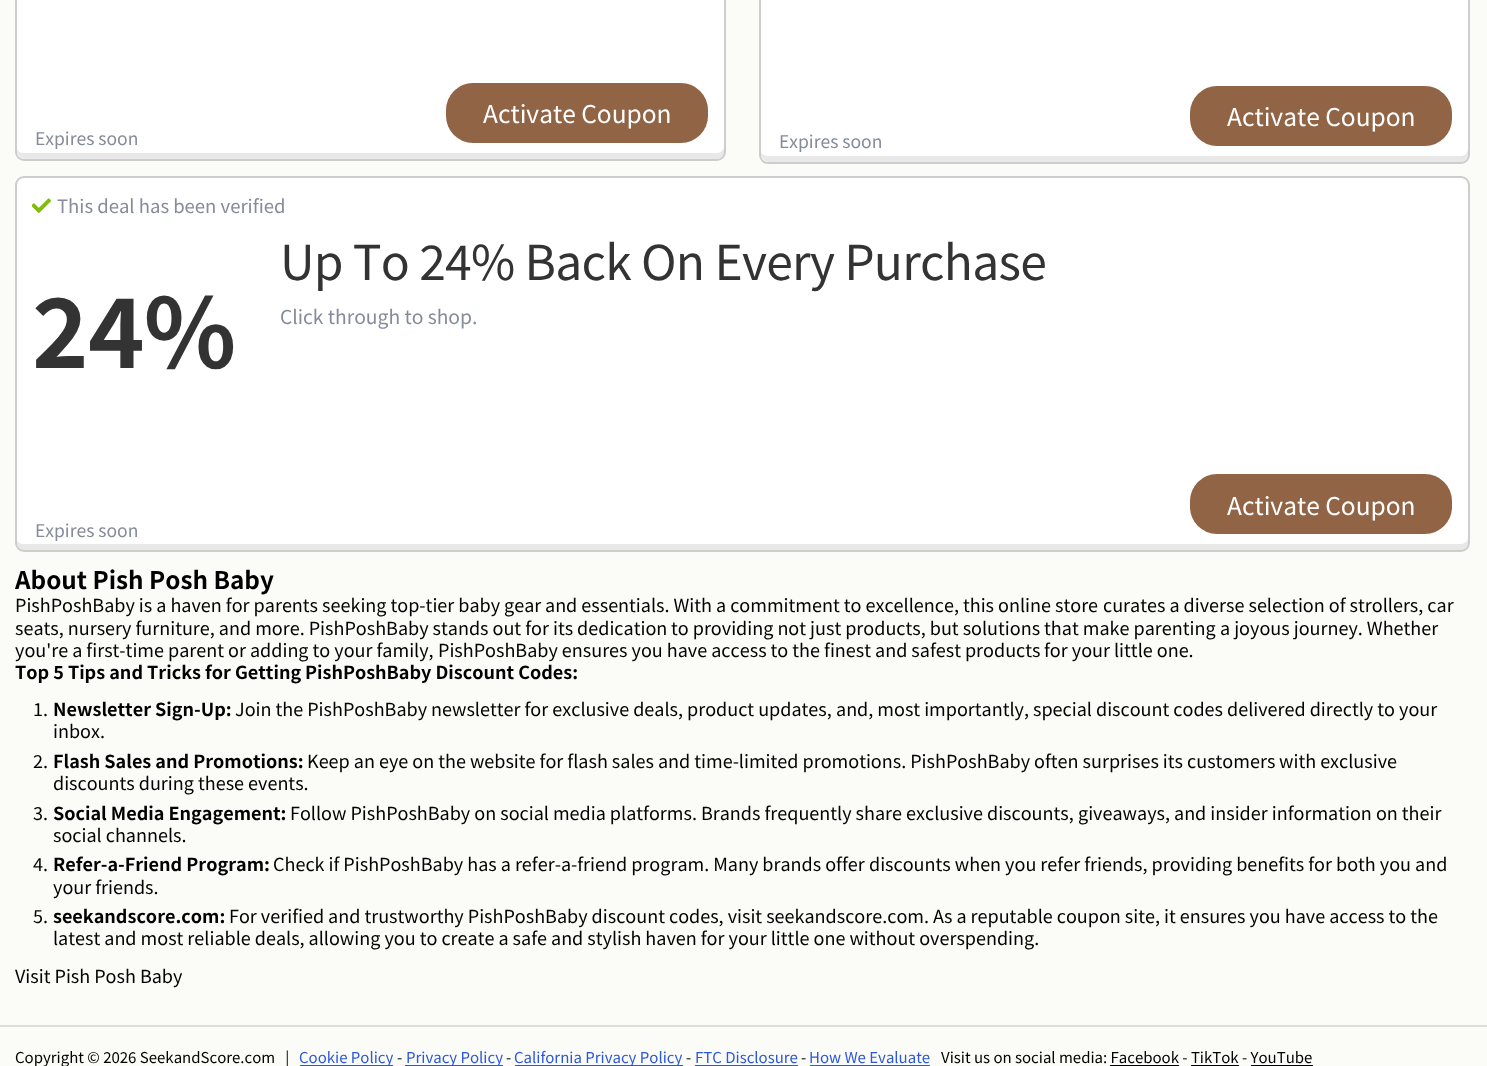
<?xml version="1.0" encoding="UTF-8"?>
<svg xmlns="http://www.w3.org/2000/svg" width="1487" height="1066">
    <style>*{font-kerning:none!important;font-variant-ligatures:none!important}</style>
    <rect width="100%" height="100%" fill="#FBFBF7"/>
    <rect x="15" y="-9" width="711" height="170" rx="9" fill="#FFFFFF"/>
    <path d="M 17 149 V 151 C 17 155 21 159 25 159 H 717 C 721 159 725 155 725 151 V -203 C 725 -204 725 -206 724 -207 V 146 C 724 150 721 153 717 153 H 24 C 21 153 18 152 17 149 Z" fill="#E8E8E8"/>
    <rect x="16" y="-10" width="709" height="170" rx="8" fill="none" stroke="#CDCDCD" stroke-width="2"/>
    <rect x="446" y="83" width="262" height="60" rx="27" fill="#916445"/>
    <text x="483" y="123" font-family="Noto Sans KR" font-size="24.5" fill="#FFFFFF">Activate Coupon</text>
    <text x="35" y="145" font-family="Noto Sans KR" font-size="17.5" fill="#848B99">Expires soon</text>
    <rect x="759" y="-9" width="711" height="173" rx="9" fill="#FFFFFF"/>
    <path d="M 761 152 V 154 C 761 158 765 162 769 162 H 1461 C 1465 162 1469 158 1469 154 V -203 C 1469 -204 1469 -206 1468 -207 V 148 C 1468 153 1465 156 1461 156 H 768 C 765 156 762 155 761 152 Z" fill="#E8E8E8"/>
    <rect x="760" y="-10" width="709" height="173" rx="8" fill="none" stroke="#CDCDCD" stroke-width="2"/>
    <rect x="1190" y="86" width="262" height="60" rx="27" fill="#916445"/>
    <text x="1227" y="126" font-family="Noto Sans KR" font-size="24.5" fill="#FFFFFF">Activate Coupon</text>
    <text x="779" y="148" font-family="Noto Sans KR" font-size="17.5" fill="#848B99">Expires soon</text>
    <rect x="15" y="176" width="1455" height="376" rx="9" fill="#FFFFFF"/>
    <path d="M 17 540 V 543 C 17 547 21 551 25 551 H 1461 C 1465 551 1469 547 1469 543 V 185 C 1469 184 1469 182 1468 181 V 537 C 1468 541 1465 544 1461 544 H 24 C 21 544 18 543 17 540 Z" fill="#E8E8E8"/>
    <rect x="16" y="177" width="1453" height="374" rx="8" fill="none" stroke="#CDCDCD" stroke-width="2"/>
    <image x="32" y="198" width="19" height="15" href="img_01.png"/>
    <text x="57" y="213" font-family="Noto Sans KR" font-size="18.5" fill="#848B99">This deal has been verified</text>
    <text x="280" y="280" font-family="Noto Sans KR" font-size="48" letter-spacing="-0.75" fill="#333333">Up To 24% Back On Every Purchase</text>
    <text x="32" y="368" font-family="Noto Sans KR" font-size="96" font-weight="700" letter-spacing="-0.75" fill="#333333">24%</text>
    <text x="280" y="324" font-family="Noto Sans KR" font-size="19.25" fill="#848B99">Click through to shop.</text>
    <rect x="1190" y="474" width="262" height="60" rx="27" fill="#916445"/>
    <text x="1227" y="515" font-family="Noto Sans KR" font-size="24.5" fill="#FFFFFF">Activate Coupon</text>
    <text x="35" y="537" font-family="Noto Sans KR" font-size="17.5" fill="#848B99">Expires soon</text>
    <text x="15" y="589" font-family="Noto Sans JP" font-size="24.25" font-weight="700" fill="#000000">About Pish Posh Baby</text>
    <text x="15" y="612" font-family="Noto Sans JP" font-size="18" fill="#000000">PishPoshBaby is a haven for parents seeking top-tier baby gear</text>
    <text x="545" y="612" font-family="Noto Sans JP" font-size="18" fill="#000000">and essentials. With a commitment to excellence, this online store</text>
    <text x="1103" y="612" font-family="Noto Sans JP" font-size="18" fill="#000000">curates a diverse selection of strollers, car</text>
    <text x="15" y="635" font-family="Noto Sans JP" font-size="18" fill="#000000">seats, nursery furniture, and more. PishPoshBaby stands out for its dedication</text>
    <text x="671" y="635" font-family="Noto Sans JP" font-size="18" fill="#000000">to providing not just products, but solutions that make parenting</text>
    <text x="1220" y="635" font-family="Noto Sans JP" font-size="18" fill="#000000">a joyous journey. Whether</text>
    <text x="15" y="657" font-family="Noto Sans JP" font-size="18" fill="#000000">you're a first-time parent or adding to your family,</text>
    <text x="438" y="657" font-family="Noto Sans JP" font-size="18" fill="#000000">PishPoshBaby ensures you have access to the finest and safest products</text>
    <text x="1044" y="657" font-family="Noto Sans JP" font-size="18" fill="#000000">for your little one.</text>
    <text x="15" y="679" font-family="Noto Sans JP" font-size="18" font-weight="700" fill="#000000">Top 5 Tips and Tricks for Getting</text>
    <text x="305" y="679" font-family="Noto Sans JP" font-size="18" font-weight="700" fill="#000000">PishPoshBaby Discount Codes:</text>
    <text x="33" y="716" font-family="Noto Sans JP" font-size="18" fill="#000000">1.</text>
    <text x="53" y="716" font-family="Noto Sans JP" font-size="18" font-weight="700" fill="#000000">Newsletter Sign-Up:</text>
    <text x="235" y="716" font-family="Noto Sans JP" font-size="18" fill="#000000">Join the PishPoshBaby newsletter for exclusive deals, product updates,</text>
    <text x="836" y="716" font-family="Noto Sans JP" font-size="18" fill="#000000">and, most importantly, special discount codes delivered directly to</text>
    <text x="1399" y="716" font-family="Noto Sans JP" font-size="18" fill="#000000">your</text>
    <text x="53" y="738" font-family="Noto Sans JP" font-size="18" fill="#000000">inbox.</text>
    <text x="33" y="768" font-family="Noto Sans JP" font-size="18" fill="#000000">2.</text>
    <text x="53" y="768" font-family="Noto Sans JP" font-size="18" font-weight="700" fill="#000000">Flash Sales and Promotions:</text>
    <text x="307" y="768" font-family="Noto Sans JP" font-size="18" fill="#000000">Keep an eye on the website for flash sales and time-limited promotions. PishPoshBaby often surprises its customers</text>
    <text x="1279" y="768" font-family="Noto Sans JP" font-size="18" fill="#000000">with exclusive</text>
    <text x="53" y="790" font-family="Noto Sans JP" font-size="18" fill="#000000">discounts during these events.</text>
    <text x="33" y="820" font-family="Noto Sans JP" font-size="18" fill="#000000">3.</text>
    <text x="53" y="820" font-family="Noto Sans JP" font-size="18" font-weight="700" fill="#000000">Social Media Engagement:</text>
    <text x="290" y="820" font-family="Noto Sans JP" font-size="18" fill="#000000">Follow PishPoshBaby on social media platforms. Brands frequently share exclusive discounts,</text>
    <text x="1078" y="820" font-family="Noto Sans JP" font-size="18" fill="#000000">giveaways, and insider information on their</text>
    <text x="53" y="842" font-family="Noto Sans JP" font-size="18" fill="#000000">social channels.</text>
    <text x="33" y="871" font-family="Noto Sans JP" font-size="18" fill="#000000">4.</text>
    <text x="53" y="871" font-family="Noto Sans JP" font-size="18" font-weight="700" fill="#000000">Refer-a-Friend Program:</text>
    <text x="273" y="871" font-family="Noto Sans JP" font-size="18" fill="#000000">Check if PishPoshBaby has a refer-a-friend program. Many brands offer</text>
    <text x="869" y="871" font-family="Noto Sans JP" font-size="18" fill="#000000">discounts when you refer friends, providing benefits for both you and</text>
    <text x="53" y="894" font-family="Noto Sans JP" font-size="18" fill="#000000">your friends.</text>
    <text x="33" y="923" font-family="Noto Sans JP" font-size="18" fill="#000000">5.</text>
    <text x="53" y="923" font-family="Noto Sans JP" font-size="18" font-weight="700" fill="#000000">seekandscore.com:</text>
    <text x="229" y="923" font-family="Noto Sans JP" font-size="18" fill="#000000">For verified and trustworthy PishPoshBaby discount codes, visit seekandscore.com.</text>
    <text x="933" y="923" font-family="Noto Sans JP" font-size="18" fill="#000000">As a reputable coupon site, it ensures you have access to the</text>
    <text x="53" y="945" font-family="Noto Sans JP" font-size="18" fill="#000000">latest and most reliable deals, allowing you to create a safe</text>
    <text x="551" y="945" font-family="Noto Sans JP" font-size="18" fill="#000000">and stylish haven for your little one without overspending.</text>
    <text x="15" y="983" font-family="Noto Sans JP" font-size="18" fill="#000000">Visit Pish Posh Baby</text>
    <rect x="0" y="1025" width="1487" height="2" fill="#DDDDDD"/>
    <text x="15" y="1063" font-family="Noto Sans JP" font-size="15" fill="#000000" xml:space="preserve">Copyright © 2026 SeekandScore.com   |</text>
    <rect x="300" y="1065" width="93" height="1" fill="#2D58D7"/>
    <text x="299" y="1063" font-family="Noto Sans JP" font-size="15" fill="#2D58D7">Cookie Policy</text>
    <text x="397" y="1063" font-family="Noto Sans JP" font-size="15" fill="#000000">-</text>
    <rect x="405" y="1065" width="98" height="1" fill="#2D58D7"/>
    <text x="406" y="1063" font-family="Noto Sans JP" font-size="15" fill="#2D58D7">Privacy Policy</text>
    <text x="506" y="1063" font-family="Noto Sans JP" font-size="15" fill="#000000">-</text>
    <rect x="515" y="1065" width="168" height="1" fill="#2D58D7"/>
    <text x="514" y="1063" font-family="Noto Sans JP" font-size="15" fill="#2D58D7">California Privacy Policy</text>
    <text x="686" y="1063" font-family="Noto Sans JP" font-size="15" fill="#000000">-</text>
    <text x="695" y="1063" font-family="Noto Sans JP" font-size="15" fill="#2D58D7">FTC Disclosure</text>
    <rect x="695" y="1065" width="103" height="1" fill="#2D58D7"/>
    <text x="801" y="1063" font-family="Noto Sans JP" font-size="15" fill="#000000">-</text>
    <text x="809" y="1063" font-family="Noto Sans JP" font-size="15" fill="#2D58D7">How We Evaluate</text>
    <rect x="810" y="1065" width="120" height="1" fill="#2D58D7"/>
    <text x="941" y="1063" font-family="Noto Sans JP" font-size="15" fill="#000000">Visit us on social media: Facebook - TikTok - YouTube</text>
    <rect x="1110" y="1065" width="69" height="1" fill="#000000"/>
    <rect x="1191" y="1065" width="48" height="1" fill="#000000"/>
    <rect x="1251" y="1065" width="62" height="1" fill="#000000"/>
</svg>
